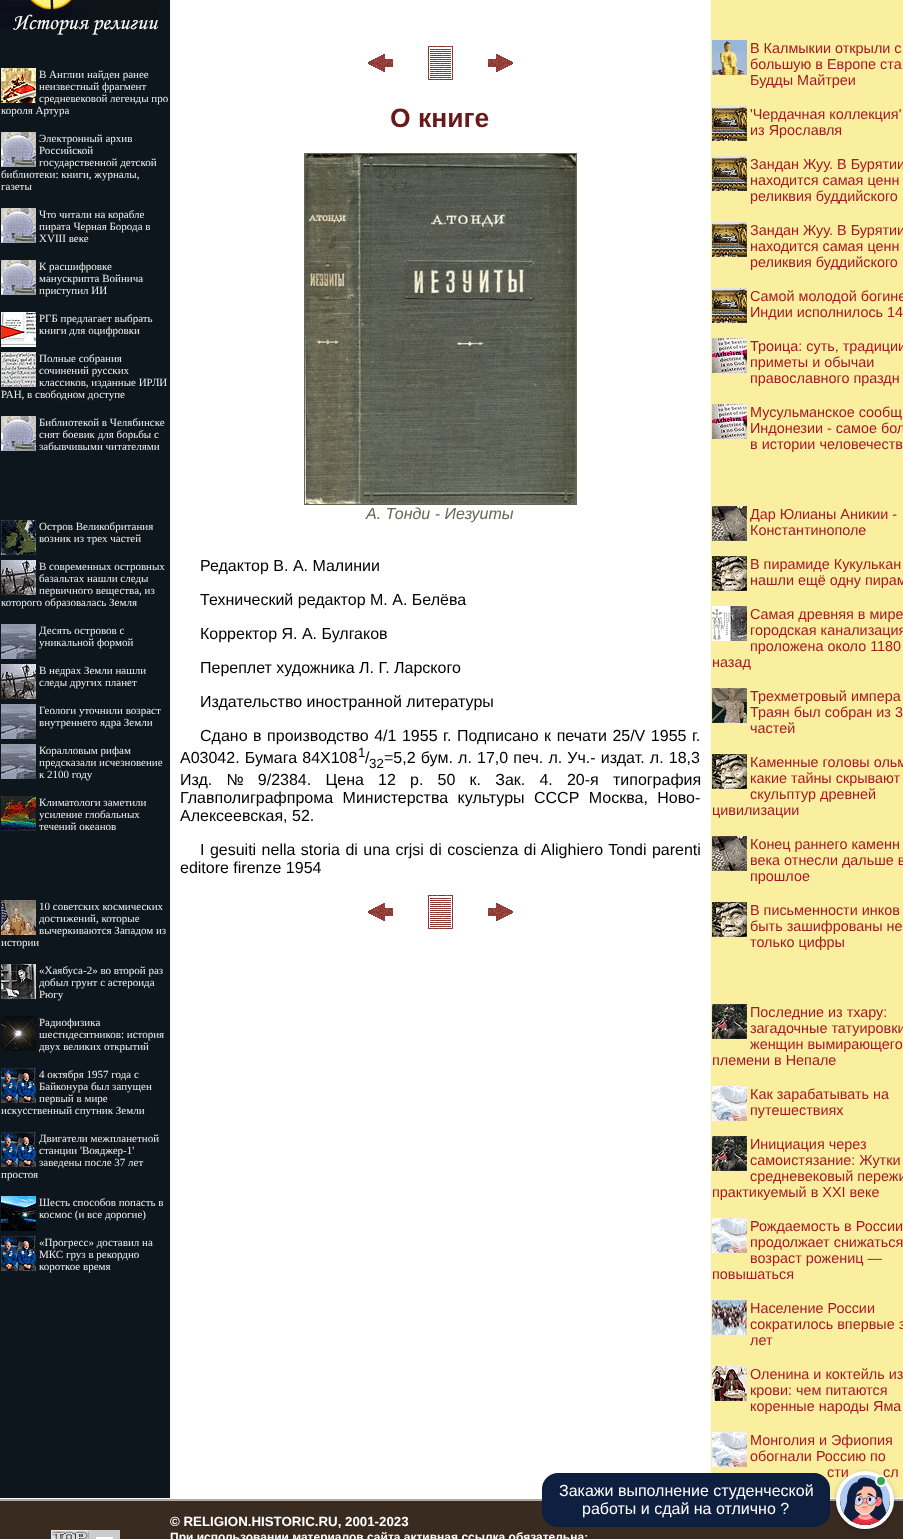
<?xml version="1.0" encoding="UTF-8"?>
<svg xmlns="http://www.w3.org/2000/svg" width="903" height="1539">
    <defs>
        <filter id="blur1" x="-50%" y="-200%" width="200%" height="500%"><feGaussianBlur stdDeviation="4"/></filter>
        <filter id="blur2" x="-50%" y="-200%" width="200%" height="500%"><feGaussianBlur stdDeviation="1"/></filter>
    </defs>
    <rect width="100%" height="100%" fill="#FFFFFF"/>
    <rect x="0" y="0" width="170" height="1498" fill="#0E161D"/>
    <image x="0" y="0" width="159" height="35" href="img_01.png"/>
    <image x="1" y="68" width="35" height="35" href="img_02.png"/>
    <text font-family="Liberation Serif" font-size="11" fill="#EEEEEE">
        <tspan x="39" y="78">В Англии найден ранее</tspan>
        <tspan x="39" y="90">неизвестный фрагмент</tspan>
        <tspan x="39" y="102">средневековой легенды про</tspan>
    </text>
    <text x="1" y="114" font-family="Liberation Serif" font-size="11" fill="#EEEEEE">короля Артура</text>
    <image x="1" y="132" width="35" height="35" href="img_03.png"/>
    <text font-family="Liberation Serif" font-size="11" fill="#EEEEEE">
        <tspan x="39" y="142">Электронный архив</tspan>
        <tspan x="39" y="154">Российской</tspan>
        <tspan x="39" y="166">государственной детской</tspan>
    </text>
    <text font-family="Liberation Serif" font-size="11" fill="#EEEEEE">
        <tspan x="1" y="178">библиотеки: книги, журналы,</tspan>
        <tspan x="1" y="190">газеты</tspan>
    </text>
    <image x="1" y="208" width="35" height="35" href="img_03.png"/>
    <text font-family="Liberation Serif" font-size="11" fill="#EEEEEE">
        <tspan x="39" y="218">Что читали на корабле</tspan>
        <tspan x="39" y="230">пирата Черная Борода в</tspan>
        <tspan x="39" y="242">XVIII веке</tspan>
    </text>
    <image x="1" y="260" width="35" height="35" href="img_03.png"/>
    <text font-family="Liberation Serif" font-size="11" fill="#EEEEEE">
        <tspan x="39" y="270">К расшифровке</tspan>
        <tspan x="39" y="282">манускрипта Войнича</tspan>
        <tspan x="39" y="294">приступил ИИ</tspan>
    </text>
    <image x="1" y="312" width="35" height="35" href="img_04.png"/>
    <text font-family="Liberation Serif" font-size="11" fill="#EEEEEE">
        <tspan x="39" y="322">РГБ предлагает выбрать</tspan>
        <tspan x="39" y="334">книги для оцифровки</tspan>
    </text>
    <image x="1" y="352" width="35" height="35" href="img_05.png"/>
    <text font-family="Liberation Serif" font-size="11" fill="#EEEEEE">
        <tspan x="39" y="362">Полные собрания</tspan>
        <tspan x="39" y="374">сочинений русских</tspan>
        <tspan x="39" y="386">классиков, изданные ИРЛИ</tspan>
    </text>
    <text x="1" y="398" font-family="Liberation Serif" font-size="11" fill="#EEEEEE">РАН, в свободном доступе</text>
    <image x="1" y="416" width="35" height="35" href="img_03.png"/>
    <text font-family="Liberation Serif" font-size="11" fill="#EEEEEE">
        <tspan x="39" y="426">Библиотекой в Челябинске</tspan>
        <tspan x="39" y="438">снят боевик для борьбы с</tspan>
        <tspan x="39" y="450">забывчивыми читателями</tspan>
    </text>
    <image x="1" y="520" width="35" height="35" href="img_06.png"/>
    <text font-family="Liberation Serif" font-size="11" fill="#EEEEEE">
        <tspan x="39" y="530">Остров Великобритания</tspan>
        <tspan x="39" y="542">возник из трех частей</tspan>
    </text>
    <image x="1" y="560" width="35" height="35" href="img_07.png"/>
    <text font-family="Liberation Serif" font-size="11" fill="#EEEEEE">
        <tspan x="39" y="570">В современных островных</tspan>
        <tspan x="39" y="582">базальтах нашли следы</tspan>
        <tspan x="39" y="594">первичного вещества, из</tspan>
    </text>
    <text x="1" y="606" font-family="Liberation Serif" font-size="11" fill="#EEEEEE">которого образовалась Земля</text>
    <image x="1" y="624" width="35" height="35" href="img_08.png"/>
    <text font-family="Liberation Serif" font-size="11" fill="#EEEEEE">
        <tspan x="39" y="634">Десять островов c</tspan>
        <tspan x="39" y="646">уникальной формой</tspan>
    </text>
    <image x="1" y="664" width="35" height="35" href="img_07.png"/>
    <text font-family="Liberation Serif" font-size="11" fill="#EEEEEE">
        <tspan x="39" y="674">В недрах Земли нашли</tspan>
        <tspan x="39" y="686">следы других планет</tspan>
    </text>
    <image x="1" y="704" width="35" height="35" href="img_08.png"/>
    <text font-family="Liberation Serif" font-size="11" fill="#EEEEEE">
        <tspan x="39" y="714">Геологи уточнили возраст</tspan>
        <tspan x="39" y="726">внутреннего ядра Земли</tspan>
    </text>
    <image x="1" y="744" width="35" height="35" href="img_08.png"/>
    <text font-family="Liberation Serif" font-size="11" fill="#EEEEEE">
        <tspan x="39" y="754">Коралловым рифам</tspan>
        <tspan x="39" y="766">предсказали исчезновение</tspan>
        <tspan x="39" y="778">к 2100 году</tspan>
    </text>
    <image x="1" y="796" width="35" height="35" href="img_09.png"/>
    <text font-family="Liberation Serif" font-size="11" fill="#EEEEEE">
        <tspan x="39" y="806">Климатологи заметили</tspan>
        <tspan x="39" y="818">усиление глобальных</tspan>
        <tspan x="39" y="830">течений океанов</tspan>
    </text>
    <image x="1" y="900" width="35" height="35" href="img_10.png"/>
    <text font-family="Liberation Serif" font-size="11" fill="#EEEEEE">
        <tspan x="39" y="910">10 советских космических</tspan>
        <tspan x="39" y="922">достижений, которые</tspan>
        <tspan x="39" y="934">вычеркиваются Западом из</tspan>
    </text>
    <text x="1" y="946" font-family="Liberation Serif" font-size="11" fill="#EEEEEE">истории</text>
    <image x="1" y="964" width="35" height="35" href="img_11.png"/>
    <text font-family="Liberation Serif" font-size="11" fill="#EEEEEE">
        <tspan x="39" y="974">«Хаябуса-2» во второй раз</tspan>
        <tspan x="39" y="986">добыл грунт с астероида</tspan>
        <tspan x="39" y="998">Рюгу</tspan>
    </text>
    <image x="1" y="1016" width="35" height="35" href="img_12.png"/>
    <text font-family="Liberation Serif" font-size="11" fill="#EEEEEE">
        <tspan x="39" y="1026">Радиофизика</tspan>
        <tspan x="39" y="1038">шестидесятников: история</tspan>
        <tspan x="39" y="1050">двух великих открытий</tspan>
    </text>
    <image x="1" y="1068" width="35" height="35" href="img_13.png"/>
    <text font-family="Liberation Serif" font-size="11" fill="#EEEEEE">
        <tspan x="39" y="1078">4 октября 1957 года с</tspan>
        <tspan x="39" y="1090">Байконура был запущен</tspan>
        <tspan x="39" y="1102">первый в мире</tspan>
    </text>
    <text x="1" y="1114" font-family="Liberation Serif" font-size="11" fill="#EEEEEE">искусственный спутник Земли</text>
    <image x="1" y="1132" width="35" height="35" href="img_13.png"/>
    <text font-family="Liberation Serif" font-size="11" fill="#EEEEEE">
        <tspan x="39" y="1142">Двигатели межпланетной</tspan>
        <tspan x="39" y="1154">станции 'Вояджер-1'</tspan>
        <tspan x="39" y="1166">заведены после 37 лет</tspan>
    </text>
    <text x="1" y="1178" font-family="Liberation Serif" font-size="11" fill="#EEEEEE">простоя</text>
    <image x="1" y="1196" width="35" height="35" href="img_14.png"/>
    <text font-family="Liberation Serif" font-size="11" fill="#EEEEEE">
        <tspan x="39" y="1206">Шесть способов попасть в</tspan>
        <tspan x="39" y="1218">космос (и все дорогие)</tspan>
    </text>
    <image x="1" y="1236" width="35" height="35" href="img_13.png"/>
    <text font-family="Liberation Serif" font-size="11" fill="#EEEEEE">
        <tspan x="39" y="1246">«Прогресс» доставил на</tspan>
        <tspan x="39" y="1258">МКС груз в рекордно</tspan>
        <tspan x="39" y="1270">короткое время</tspan>
    </text>
    <image x="368" y="54" width="25" height="18" href="img_15.png"/>
    <image x="428" y="46" width="25" height="34" href="img_16.png"/>
    <image x="488" y="54" width="25" height="18" href="img_17.png"/>
    <text x="390" y="127" font-family="Liberation Sans" font-size="26.5" font-weight="700" fill="#681A1A">О книге</text>
    <rect x="304.5" y="153.5" width="272" height="351" fill="none" stroke="#666655"/>
    <image x="305" y="154" width="271" height="350" href="img_18.png"/>
    <text x="366" y="519" font-family="Liberation Sans" font-size="16" font-style="italic" fill="#666655">А. Тонди - Иезуиты</text>
    <text x="200" y="571" font-family="Liberation Sans" font-size="16" fill="#000000">Редактор В. А. Малинии</text>
    <text x="200" y="605" font-family="Liberation Sans" font-size="16" fill="#000000">Технический редактор М. А. Белёва</text>
    <text x="200" y="639" font-family="Liberation Sans" font-size="16" fill="#000000">Корректор Я. А. Булгаков</text>
    <text x="200" y="673" font-family="Liberation Sans" font-size="16" fill="#000000">Переплет художника Л. Г. Ларского</text>
    <text x="200" y="707" font-family="Liberation Sans" font-size="16" fill="#000000">Издательство иностранной литературы</text>
    <text x="200" y="741" word-spacing="1.1" font-family="Liberation Sans" font-size="16" fill="#000000">Сдано в производство 4/1 1955 г. Подписано к печати 25/V 1955 г.</text>
    <text x="180" y="763" word-spacing="0.75" font-family="Liberation Sans" font-size="16" fill="#000000">А03042. Бумага 84Х108</text>
    <text x="358" y="757" font-family="Liberation Sans" font-size="13.3" fill="#000000">1</text>
    <text x="365" y="763" font-family="Liberation Sans" font-size="16" fill="#000000">/</text>
    <text x="369" y="768" font-family="Liberation Sans" font-size="13.3" fill="#000000">32</text>
    <text x="384" y="763" word-spacing="0.75" font-family="Liberation Sans" font-size="16" fill="#000000">=5,2 бум. л. 17,0 печ. л. Уч.- издат. л. 18,3</text>
    <text font-family="Liberation Sans" font-size="16" fill="#000000">
        <tspan x="180" y="785" word-spacing="9.75">Изд. № 9/2384. Цена 12 р. 50 к. Зак. 4. 20-я типография</tspan>
        <tspan x="180" y="803" word-spacing="5">Главполиграфпрома Министерства культуры СССР Москва, Ново-</tspan>
        <tspan x="180" y="821">Алексеевская, 52.</tspan>
    </text>
    <text x="200" y="855" word-spacing="1" font-family="Liberation Sans" font-size="16" fill="#000000">I gesuiti nella storia di una crjsi di coscienza di Alighiero Tondi parenti</text>
    <text x="180" y="873" font-family="Liberation Sans" font-size="16" fill="#000000">editore firenze 1954</text>
    <image x="368" y="903" width="25" height="18" href="img_15.png"/>
    <image x="428" y="895" width="25" height="34" href="img_16.png"/>
    <image x="488" y="903" width="25" height="18" href="img_17.png"/>
    <rect x="711" y="0" width="192" height="1498" fill="#FAEF9E"/>
    <image x="712" y="40" width="35" height="35" href="img_19.png"/>
    <text font-family="Liberation Sans" font-size="14.4" fill="#A81927">
        <tspan x="750" y="53">В Калмыкии открыли с</tspan>
        <tspan x="750" y="69">большую в Европе ста</tspan>
        <tspan x="750" y="85">Будды Майтреи</tspan>
    </text>
    <image x="712" y="106" width="35" height="35" href="img_20.png"/>
    <text font-family="Liberation Sans" font-size="14.4" fill="#A81927">
        <tspan x="750" y="119">'Чердачная коллекция'</tspan>
        <tspan x="750" y="135">из Ярославля</tspan>
    </text>
    <image x="712" y="156" width="35" height="35" href="img_20.png"/>
    <text font-family="Liberation Sans" font-size="14.4" fill="#A81927">
        <tspan x="750" y="169">Зандан Жуу. В Бурятии</tspan>
        <tspan x="750" y="185">находится самая ценн</tspan>
        <tspan x="750" y="201">реликвия буддийского</tspan>
    </text>
    <image x="712" y="222" width="35" height="35" href="img_20.png"/>
    <text font-family="Liberation Sans" font-size="14.4" fill="#A81927">
        <tspan x="750" y="235">Зандан Жуу. В Бурятии</tspan>
        <tspan x="750" y="251">находится самая ценн</tspan>
        <tspan x="750" y="267">реликвия буддийского</tspan>
    </text>
    <image x="712" y="288" width="35" height="35" href="img_20.png"/>
    <text font-family="Liberation Sans" font-size="14.4" fill="#A81927">
        <tspan x="750" y="301">Самой молодой богине</tspan>
        <tspan x="750" y="317">Индии исполнилось 14</tspan>
    </text>
    <image x="712" y="338" width="35" height="35" href="img_21.png"/>
    <text font-family="Liberation Sans" font-size="14.4" fill="#A81927">
        <tspan x="750" y="351">Троица: суть, традиции</tspan>
        <tspan x="750" y="367">приметы и обычаи</tspan>
        <tspan x="750" y="383">православного праздн</tspan>
    </text>
    <image x="712" y="404" width="35" height="35" href="img_21.png"/>
    <text font-family="Liberation Sans" font-size="14.4" fill="#A81927">
        <tspan x="750" y="417">Мусульманское сообщ</tspan>
        <tspan x="750" y="433">Индонезии - самое бол</tspan>
        <tspan x="750" y="449">в истории человечеств</tspan>
    </text>
    <image x="712" y="506" width="35" height="35" href="img_22.png"/>
    <text font-family="Liberation Sans" font-size="14.4" fill="#A81927">
        <tspan x="750" y="519">Дар Юлианы Аникии -</tspan>
        <tspan x="750" y="535">Константинополе</tspan>
    </text>
    <image x="712" y="556" width="35" height="35" href="img_23.png"/>
    <text font-family="Liberation Sans" font-size="14.4" fill="#A81927">
        <tspan x="750" y="569">В пирамиде Кукулькан</tspan>
        <tspan x="750" y="585">нашли ещё одну пирам</tspan>
    </text>
    <image x="712" y="606" width="35" height="35" href="img_24.png"/>
    <text font-family="Liberation Sans" font-size="14.4" fill="#A81927">
        <tspan x="750" y="619">Самая древняя в мире</tspan>
        <tspan x="750" y="635">городская канализация</tspan>
        <tspan x="750" y="651">проложена около 1180</tspan>
    </text>
    <text x="712" y="667" font-family="Liberation Sans" font-size="14.4" fill="#A81927">назад</text>
    <image x="712" y="688" width="35" height="35" href="img_25.png"/>
    <text font-family="Liberation Sans" font-size="14.4" fill="#A81927">
        <tspan x="750" y="701">Трехметровый импера</tspan>
        <tspan x="750" y="717">Траян был собран из 3</tspan>
        <tspan x="750" y="733">частей</tspan>
    </text>
    <image x="712" y="754" width="35" height="35" href="img_23.png"/>
    <text font-family="Liberation Sans" font-size="14.4" fill="#A81927">
        <tspan x="750" y="767">Каменные головы ольм</tspan>
        <tspan x="750" y="783">какие тайны скрывают</tspan>
        <tspan x="750" y="799">скульптур древней</tspan>
    </text>
    <text x="712" y="815" font-family="Liberation Sans" font-size="14.4" fill="#A81927">цивилизации</text>
    <image x="712" y="836" width="35" height="35" href="img_22.png"/>
    <text font-family="Liberation Sans" font-size="14.4" fill="#A81927">
        <tspan x="750" y="849">Конец раннего каменн</tspan>
        <tspan x="750" y="865">века отнесли дальше в</tspan>
        <tspan x="750" y="881">прошлое</tspan>
    </text>
    <image x="712" y="902" width="35" height="35" href="img_23.png"/>
    <text font-family="Liberation Sans" font-size="14.4" fill="#A81927">
        <tspan x="750" y="915">В письменности инков</tspan>
        <tspan x="750" y="931">быть зашифрованы не</tspan>
        <tspan x="750" y="947">только цифры</tspan>
    </text>
    <image x="712" y="1004" width="35" height="35" href="img_26.png"/>
    <text font-family="Liberation Sans" font-size="14.4" fill="#A81927">
        <tspan x="750" y="1017">Последние из тхару:</tspan>
        <tspan x="750" y="1033">загадочные татуировки</tspan>
        <tspan x="750" y="1049">женщин вымирающего</tspan>
    </text>
    <text x="712" y="1065" font-family="Liberation Sans" font-size="14.4" fill="#A81927">племени в Непале</text>
    <image x="712" y="1086" width="35" height="35" href="img_27.png"/>
    <text font-family="Liberation Sans" font-size="14.4" fill="#A81927">
        <tspan x="750" y="1099">Как зарабатывать на</tspan>
        <tspan x="750" y="1115">путешествиях</tspan>
    </text>
    <image x="712" y="1136" width="35" height="35" href="img_26.png"/>
    <text font-family="Liberation Sans" font-size="14.4" fill="#A81927">
        <tspan x="750" y="1149">Инициация через</tspan>
        <tspan x="750" y="1165">самоистязание: Жутки</tspan>
        <tspan x="750" y="1181">средневековый пережи</tspan>
    </text>
    <text x="712" y="1197" font-family="Liberation Sans" font-size="14.4" fill="#A81927">практикуемый в XXI веке</text>
    <image x="712" y="1218" width="35" height="35" href="img_27.png"/>
    <text font-family="Liberation Sans" font-size="14.4" fill="#A81927">
        <tspan x="750" y="1231">Рождаемость в России</tspan>
        <tspan x="750" y="1247">продолжает снижаться</tspan>
        <tspan x="750" y="1263">возраст рожениц —</tspan>
    </text>
    <text x="712" y="1279" font-family="Liberation Sans" font-size="14.4" fill="#A81927">повышаться</text>
    <image x="712" y="1300" width="35" height="35" href="img_28.png"/>
    <text font-family="Liberation Sans" font-size="14.4" fill="#A81927">
        <tspan x="750" y="1313">Население России</tspan>
        <tspan x="750" y="1329">сократилось впервые з</tspan>
        <tspan x="750" y="1345">лет</tspan>
    </text>
    <image x="712" y="1366" width="35" height="35" href="img_29.png"/>
    <text font-family="Liberation Sans" font-size="14.4" fill="#A81927">
        <tspan x="750" y="1379">Оленина и коктейль из</tspan>
        <tspan x="750" y="1395">крови: чем питаются</tspan>
        <tspan x="750" y="1411">коренные народы Яма</tspan>
    </text>
    <image x="712" y="1432" width="35" height="35" href="img_27.png"/>
    <text font-family="Liberation Sans" font-size="14.4" fill="#A81927">
        <tspan x="750" y="1445">Монголия и Эфиопия</tspan>
        <tspan x="750" y="1461">обогнали Россию по</tspan>
    </text>
    <text x="827" y="1477" font-family="Liberation Sans" font-size="14.4" fill="#A81927">сти</text>
    <text x="883" y="1477" font-family="Liberation Sans" font-size="14.4" fill="#A81927">сл</text>
    <rect x="0" y="1499" width="903" height="2" fill="#AAAAAA"/>
    <rect x="0" y="1501" width="903" height="38" fill="#3A2B21"/>
    <image x="51" y="1530" width="38" height="9" href="img_30.png"/>
    <image x="89" y="1530" width="31" height="9" href="img_31.png"/>
    <text x="170" y="1526" font-family="Liberation Sans" font-size="13.3" font-weight="700" fill="#FFFFFF">© RELIGION.HISTORIC.RU, 2001-2023</text>
    <text x="170" y="1541" font-family="Liberation Sans" font-size="12" font-weight="700" fill="#FFFFFF">При использовании материалов сайта активная ссылка обязательна:</text>
    <rect x="836" y="1475" width="58" height="58" rx="29" fill="#000000" fill-opacity="0.16" filter="url(#blur1)"/>
    <rect x="542" y="1473" width="288" height="54" rx="16" fill="#0E1F40"/>
    <rect x="542.5" y="1473.5" width="287" height="53" rx="15.5" fill="none" stroke="#000000" stroke-opacity="0.1"/>
    <text x="559" y="1496" font-family="Liberation Sans" font-size="16" fill="#FFFFFF">Закажи выполнение студенческой</text>
    <text x="582" y="1514" font-family="Liberation Sans" font-size="16" fill="#FFFFFF">работы и сдай на отлично ?</text>
    <rect x="836" y="1471" width="58" height="58" rx="29" fill="#000000" fill-opacity="0.16" filter="url(#blur2)"/>
    <circle cx="865" cy="1500" r="27" fill="none" stroke="#FFFFFF" stroke-width="4"/>
    <image x="840" y="1475" width="50" height="50" href="img_32.png"/>
    <circle cx="881" cy="1481" r="5" fill="#34A853" stroke="#FFFFFF" stroke-width="2"/>
</svg>
